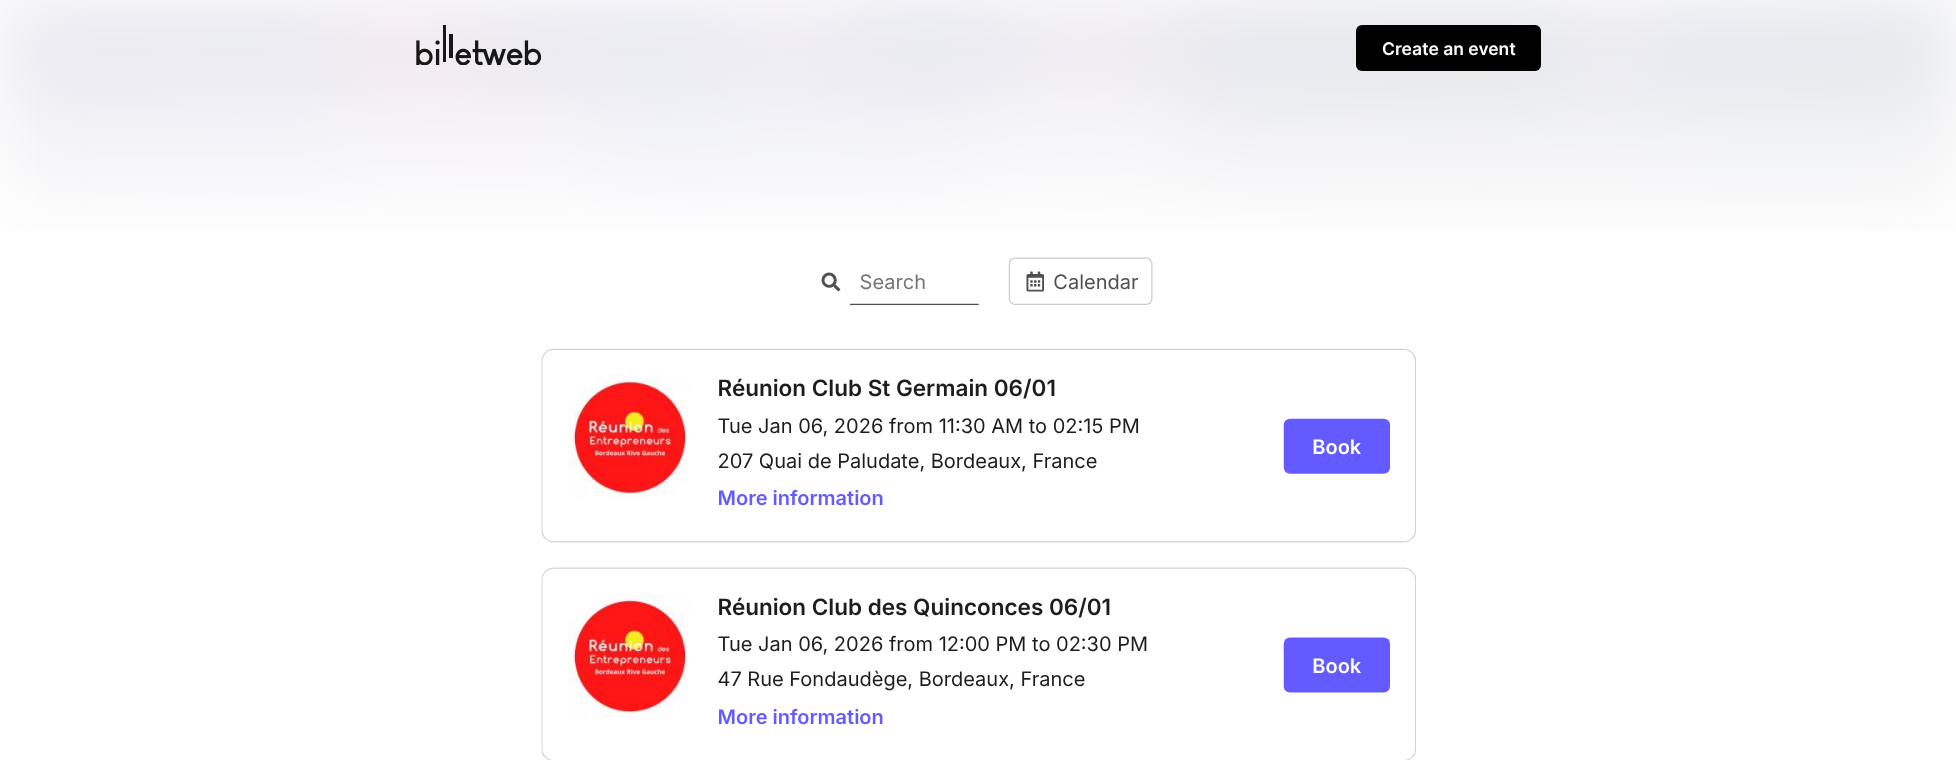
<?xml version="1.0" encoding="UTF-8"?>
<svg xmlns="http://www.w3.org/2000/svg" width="1956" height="760">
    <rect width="100%" height="100%" fill="#FFFFFF"/>
    <image x="0" y="0" width="1956" height="231" href="img_01.png"/>
    <image x="416" y="25" width="125" height="40" href="img_02.png"/>
    <rect x="1356" y="25" width="185" height="46" rx="6" fill="#000000"/>
    <text x="1382" y="55" font-family="Inter" font-size="17.5" font-weight="600" fill="#FFFFFF">Create an event</text>
    <image x="541" y="257" width="875" height="503" href="img_03.png"/>
</svg>
